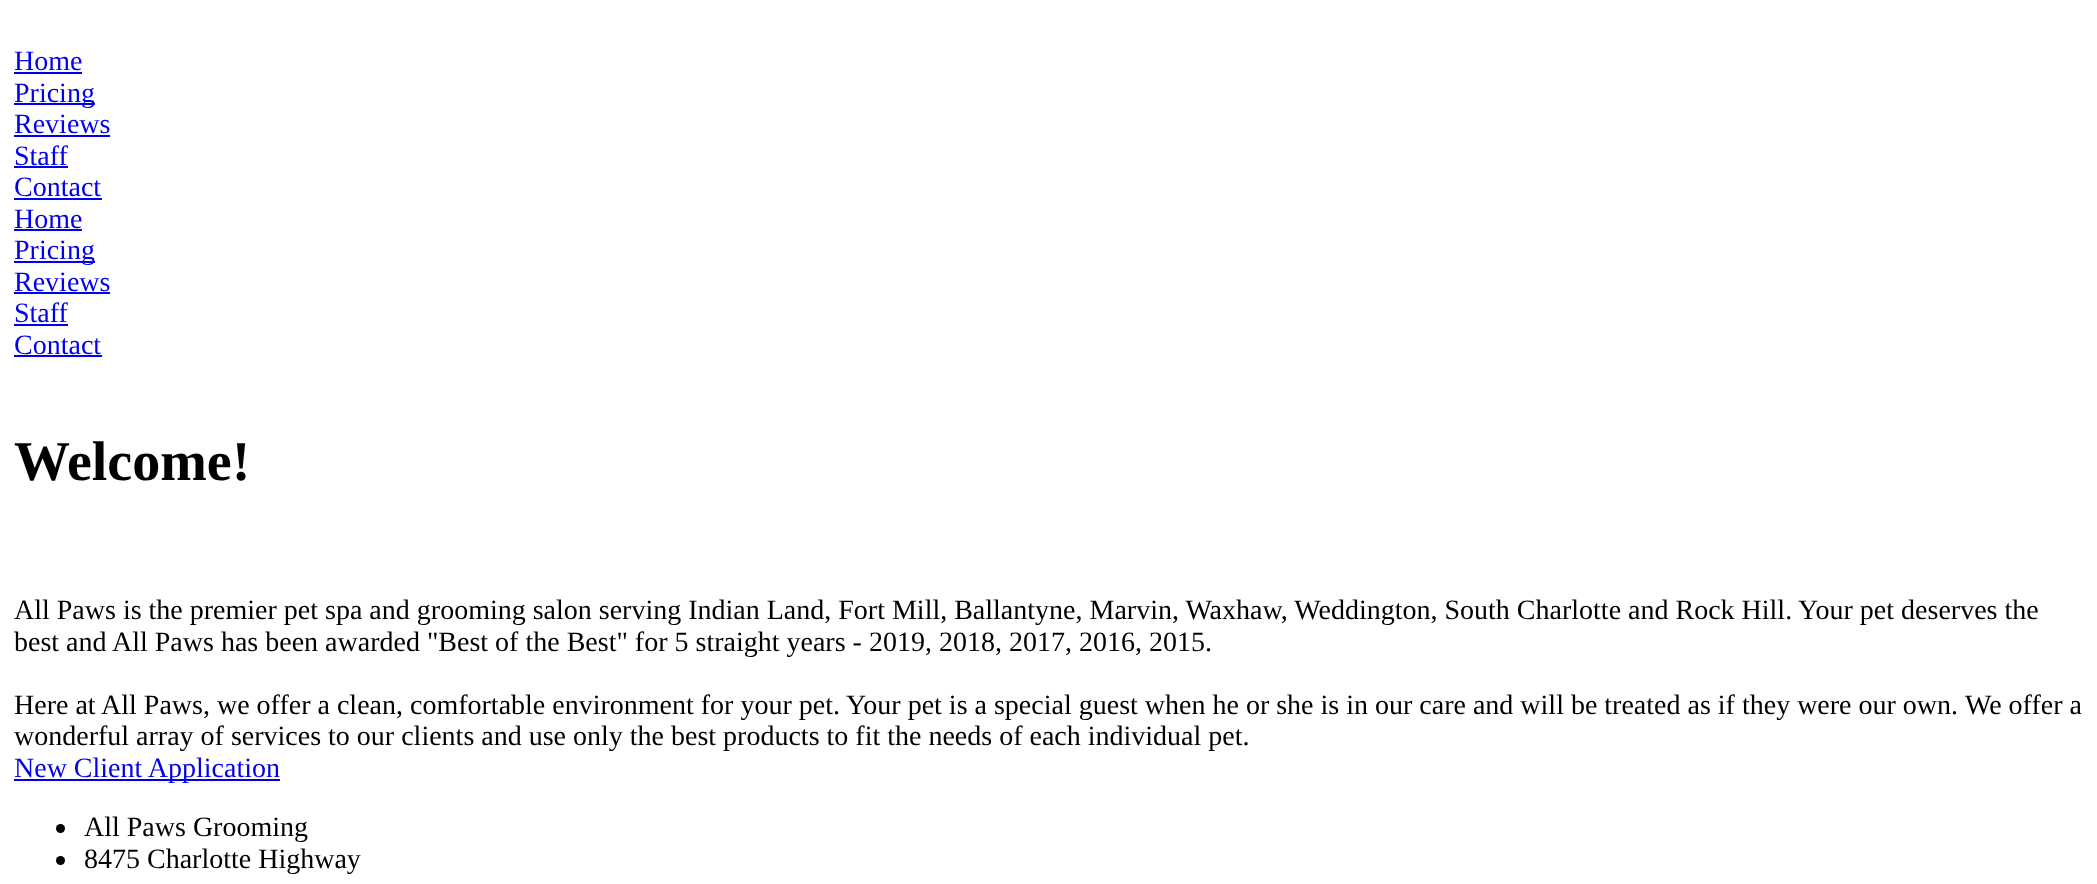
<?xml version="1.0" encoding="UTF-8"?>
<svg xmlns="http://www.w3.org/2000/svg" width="2097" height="884">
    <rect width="100%" height="100%" fill="#FFFFFF"/>
    <text x="14" y="70" font-family="Liberation Serif" font-size="28" fill="#0000EE">Home</text>
    <rect x="14" y="72" width="68" height="2" fill="#0000EE"/>
    <rect x="14" y="103" width="81" height="2" fill="#0000EE"/>
    <text font-family="Liberation Serif" font-size="28" fill="#0000EE">
        <tspan x="14" y="102">Pricing</tspan>
        <tspan x="14" y="133">Reviews</tspan>
    </text>
    <rect x="14" y="135" width="96" height="2" fill="#0000EE"/>
    <text x="14" y="165" font-family="Liberation Serif" font-size="28" fill="#0000EE">Staff</text>
    <rect x="14" y="166" width="54" height="2" fill="#0000EE"/>
    <text x="14" y="196" font-family="Liberation Serif" font-size="28" fill="#0000EE">Contact</text>
    <rect x="14" y="198" width="88" height="2" fill="#0000EE"/>
    <text x="14" y="228" font-family="Liberation Serif" font-size="28" fill="#0000EE">Home</text>
    <rect x="14" y="229" width="68" height="2" fill="#0000EE"/>
    <rect x="14" y="261" width="81" height="2" fill="#0000EE"/>
    <text font-family="Liberation Serif" font-size="28" fill="#0000EE">
        <tspan x="14" y="259">Pricing</tspan>
        <tspan x="14" y="291">Reviews</tspan>
    </text>
    <rect x="14" y="292" width="96" height="2" fill="#0000EE"/>
    <text x="14" y="322" font-family="Liberation Serif" font-size="28" fill="#0000EE">Staff</text>
    <rect x="14" y="324" width="54" height="2" fill="#0000EE"/>
    <text x="14" y="354" font-family="Liberation Serif" font-size="28" fill="#0000EE">Contact</text>
    <rect x="14" y="355" width="88" height="2" fill="#0000EE"/>
    <text x="14" y="480" font-family="Liberation Serif" font-size="56" font-weight="700" fill="#000000">Welcome!</text>
    <text font-family="Liberation Serif" font-size="28" fill="#000000">
        <tspan x="14" y="619">All Paws is the premier pet spa and grooming salon serving Indian Land, Fort Mill, Ballantyne, Marvin, Waxhaw, Weddington, South Charlotte and Rock Hill. Your pet deserves the</tspan>
        <tspan x="14" y="651">best and All Paws has been awarded "Best of the Best" for 5 straight years - 2019, 2018, 2017, 2016, 2015.</tspan>
    </text>
    <text x="14" y="714" font-family="Liberation Serif" font-size="28" fill="#000000">Here at All Paws, we offer a clean, comfortable environment for your pet. Your pet is a special guest when he or she is in our care and will be treated as if they were our own.</text>
    <text x="1965" y="714" font-family="Liberation Serif" font-size="28" fill="#000000">We offer a</text>
    <text x="14" y="745" font-family="Liberation Serif" font-size="28" fill="#000000">wonderful array of services to our clients and use only the best products to fit the needs of each individual pet.</text>
    <rect x="14" y="779" width="266" height="2" fill="#0000EE"/>
    <text x="14" y="777" font-family="Liberation Serif" font-size="28" fill="#0000EE">New Client Application</text>
    <circle cx="60.5" cy="828.5" r="4.5" fill="#000000"/>
    <text x="84" y="836" font-family="Liberation Serif" font-size="28" fill="#000000">All Paws Grooming</text>
    <circle cx="60.5" cy="860.5" r="4.5" fill="#000000"/>
    <text x="84" y="868" font-family="Liberation Serif" font-size="28" fill="#000000">8475 Charlotte Highway</text>
</svg>
